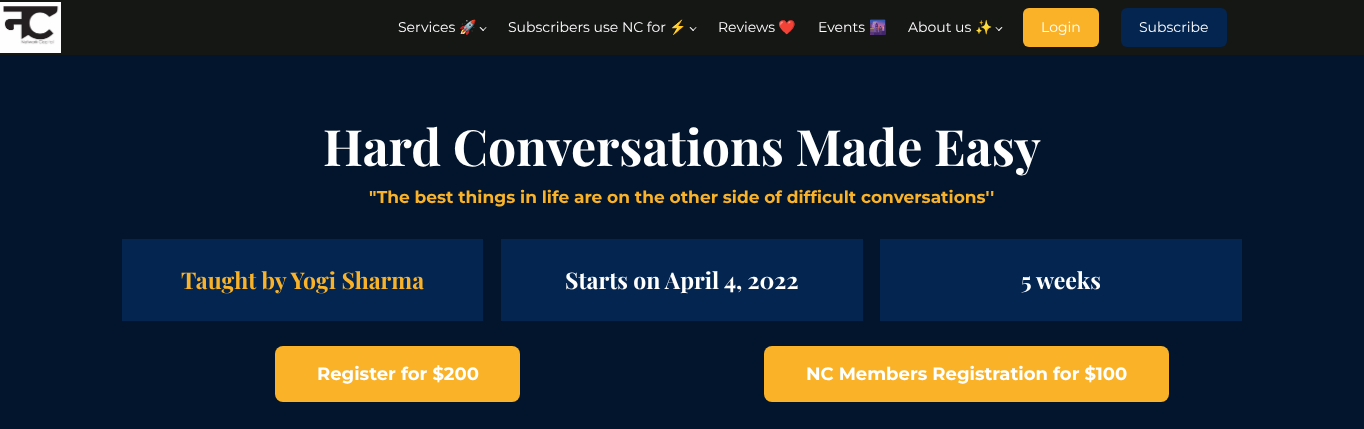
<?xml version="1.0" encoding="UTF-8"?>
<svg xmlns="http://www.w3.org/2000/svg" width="1364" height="429">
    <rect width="100%" height="100%" fill="#02152D"/>
    <rect x="0" y="0" width="1364" height="55" fill="#151715"/>
    <image x="0" y="2" width="61" height="51" href="img_01.png"/>
    <text x="398" y="32" font-family="Montserrat" font-size="14" fill="#FFFFFF">Services</text>
    <text x="459" y="32" font-family="Noto Color Emoji" font-size="14" fill="#FFFFFF">🚀</text>
    <path d="M 486.5 27.5 L 483 31 L 482.5 30.5 L 486 27 Z" fill="#FFFFFF"/>
    <path d="M 484 30.5 L 483 31 L 479.5 27.5 L 480.5 27 Z" fill="#FFFFFF"/>
    <text x="508" y="32" font-family="Montserrat" font-size="14" fill="#FFFFFF">Subscribers use NC for</text>
    <text x="669" y="32" font-family="Noto Color Emoji" font-size="14" fill="#FFFFFF">⚡</text>
    <path d="M 696.5 27.5 L 693 31 L 692.5 30.5 L 696 27 Z" fill="#FFFFFF"/>
    <path d="M 694 30.5 L 693 31 L 689.5 27.5 L 690.5 27 Z" fill="#FFFFFF"/>
    <text x="718" y="32" font-family="Montserrat" font-size="14" fill="#FFFFFF">Reviews</text>
    <text x="778" y="32" font-family="Noto Color Emoji" font-size="14" fill="#FFFFFF">❤️</text>
    <text x="818" y="32" font-family="Montserrat" font-size="14" fill="#FFFFFF">Events</text>
    <text x="869" y="32" font-family="Noto Color Emoji" font-size="14" fill="#FFFFFF">🌆</text>
    <text x="908" y="32" font-family="Montserrat" font-size="14" fill="#FFFFFF">About us</text>
    <text x="975" y="32" font-family="Noto Color Emoji" font-size="14" fill="#FFFFFF">✨</text>
    <path d="M 1002.5 27.5 L 999 31 L 998 30.5 L 1001.5 27 Z" fill="#FFFFFF"/>
    <path d="M 999.5 30.5 L 999 31 L 995.5 27.5 L 996 27 Z" fill="#FFFFFF"/>
    <rect x="1023" y="8" width="76" height="39" rx="6" fill="#FAB328"/>
    <text x="1041" y="32" font-family="Montserrat" font-size="14" fill="#FFFFFF">Login</text>
    <rect x="1121" y="8" width="106" height="39" rx="6" fill="#042550"/>
    <text x="1139" y="32" font-family="Montserrat" font-size="14" fill="#FFFFFF">Subscribe</text>
    <text x="323" y="166" font-family="Playfair Display" font-size="50" font-weight="700" fill="#FFFFFF">Hard Conversations Made Easy</text>
    <text x="369" y="203" font-family="Montserrat" font-size="17" font-weight="700" fill="#FAB328">"The best things in life are on the other side of difficult conversations''</text>
    <rect x="122" y="239" width="361" height="82" fill="#042550"/>
    <text x="181" y="289" font-family="Playfair Display" font-size="23" font-weight="700" fill="#FAB328">Taught by Yogi Sharma</text>
    <rect x="501" y="239" width="362" height="82" fill="#042550"/>
    <text x="565" y="289" font-family="Playfair Display" font-size="23" font-weight="700" fill="#FFFFFF">Starts on April 4, 2022</text>
    <rect x="880" y="239" width="362" height="82" fill="#042550"/>
    <text x="1021" y="289" font-family="Playfair Display" font-size="23" font-weight="700" fill="#FFFFFF">5 weeks</text>
    <rect x="275" y="346" width="245" height="56" rx="8" fill="#FAB328"/>
    <text x="317" y="380" font-family="Montserrat" font-size="18" font-weight="700" fill="#FFFFFF">Register for $200</text>
    <rect x="764" y="346" width="405" height="56" rx="8" fill="#FAB328"/>
    <text x="806" y="380" font-family="Montserrat" font-size="18" font-weight="700" fill="#FFFFFF">NC Members Registration for $100</text>
</svg>
